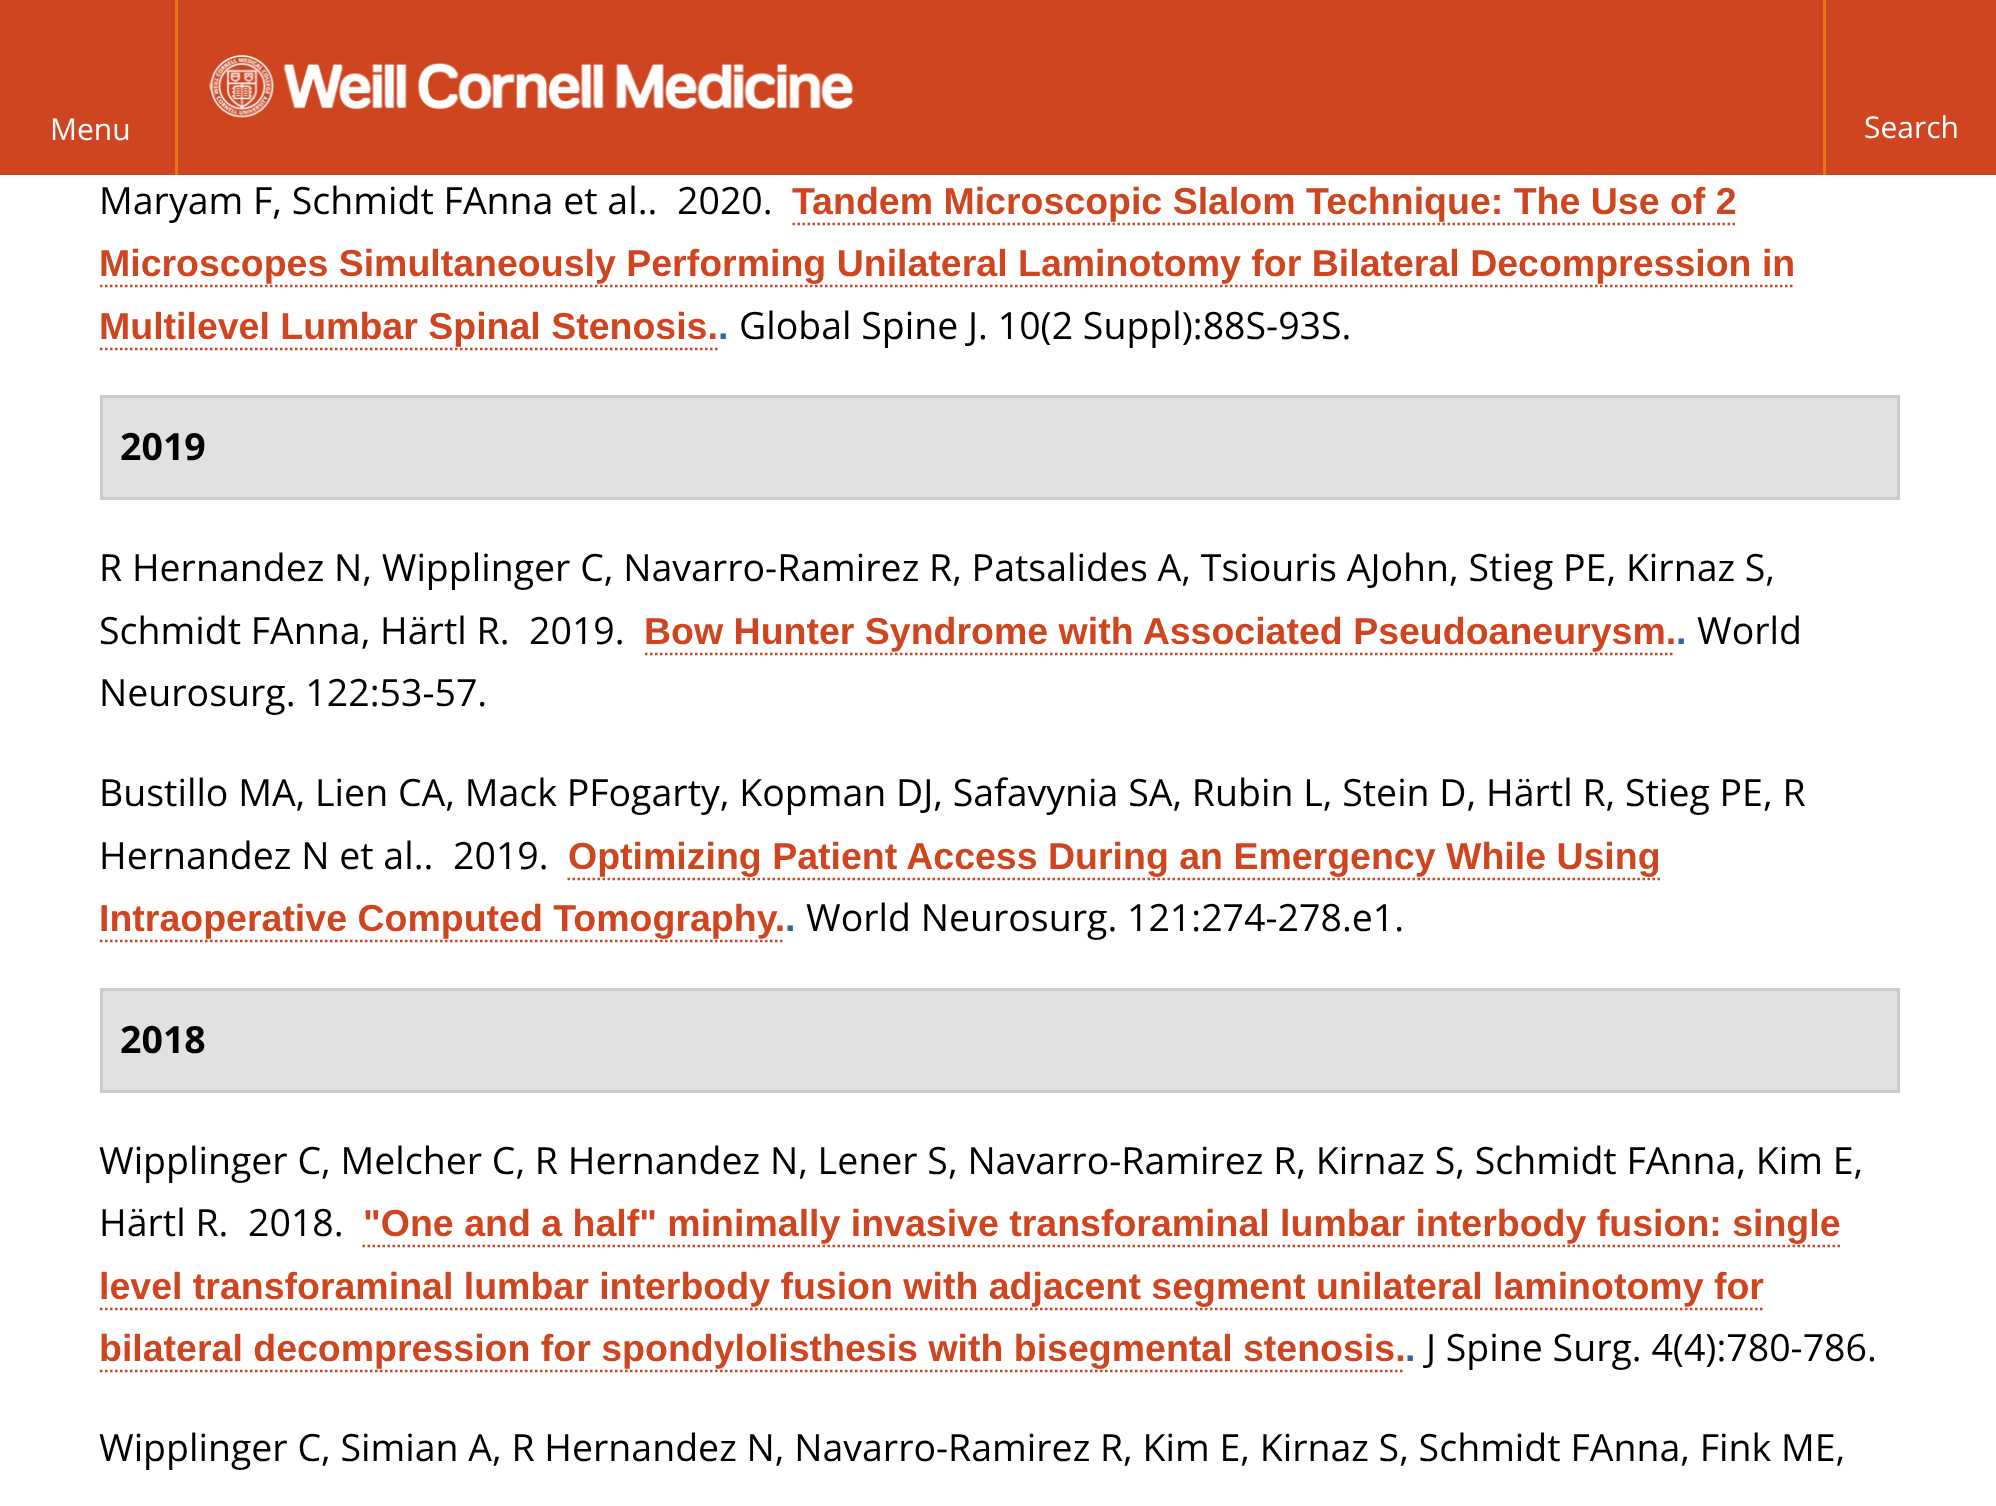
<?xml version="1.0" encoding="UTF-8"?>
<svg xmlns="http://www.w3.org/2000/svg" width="1996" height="1506">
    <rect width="100%" height="100%" fill="#FFFFFF"/>
    <rect x="0" y="0" width="1996" height="175" fill="#CF4520"/>
    <image x="209" y="55" width="644" height="63" href="img_01.png"/>
    <rect x="175" y="0" width="3" height="175" fill="#E7751D"/>
    <text x="50" y="140" font-family="Open Sans" font-size="30" fill="#FFFFFF">Menu</text>
    <rect x="1823" y="0" width="3" height="175" fill="#E7751D"/>
    <text x="1864" y="138" font-family="Open Sans" font-size="30" fill="#FFFFFF">Search</text>
    <text x="99" y="214" font-family="Open Sans" font-size="37.5" fill="#000000">Maryam F, Schmidt FAnna et al..</text>
    <text x="677" y="214" font-family="Open Sans" font-size="37.5" fill="#000000">2020.</text>
    <text x="792" y="214" font-family="Liberation Sans" font-size="37.5" font-weight="700" fill="#CF4520">Tandem Microscopic Slalom Technique: The Use of 2</text>
    <path d="M 792.5 224 H 1737.5" fill="none" stroke="#CF4520" stroke-width="2.5" stroke-dasharray="2.5 2.5"/>
    <text x="99" y="276" font-family="Liberation Sans" font-size="37.5" font-weight="700" fill="#CF4520">Microscopes Simultaneously Performing Unilateral Laminotomy for Bilateral Decompression in</text>
    <path d="M 100 286 H 1795" fill="none" stroke="#CF4520" stroke-width="2.5" stroke-dasharray="2.5 2.5"/>
    <text x="99" y="339" font-family="Liberation Sans" font-size="37.5" font-weight="700" fill="#CF4520">Multilevel Lumbar Spinal Stenosis.</text>
    <text x="718" y="339" font-family="Liberation Sans" font-size="37.5" font-weight="700" fill="#336599">.</text>
    <path d="M 100 349 H 717.5" fill="none" stroke="#CF4520" stroke-width="2.5" stroke-dasharray="2.5 2.5"/>
    <text x="739" y="339" font-family="Open Sans" font-size="37.5" fill="#000000">Global Spine J. 10(2 Suppl):88S-93S.</text>
    <rect x="101.5" y="396.5" width="1797" height="102" fill="#E1E1E1" stroke="#CCCCCC" stroke-width="3"/>
    <text x="120" y="460" font-family="Open Sans" font-size="37.5" font-weight="700" fill="#000000">2019</text>
    <text font-family="Open Sans" font-size="37.5" fill="#000000">
        <tspan x="99" y="581">R Hernandez N, Wipplinger C, Navarro-Ramirez R, Patsalides A, Tsiouris AJohn, Stieg PE, Kirnaz S,</tspan>
        <tspan x="99" y="644">Schmidt FAnna, Härtl R.</tspan>
    </text>
    <text x="529" y="644" font-family="Open Sans" font-size="37.5" fill="#000000">2019.</text>
    <text x="644" y="644" font-family="Liberation Sans" font-size="37.5" font-weight="700" fill="#CF4520">Bow Hunter Syndrome with Associated Pseudoaneurysm.</text>
    <text x="1676" y="644" font-family="Liberation Sans" font-size="37.5" font-weight="700" fill="#336599">.</text>
    <path d="M 645 654 H 1675" fill="none" stroke="#CF4520" stroke-width="2.5" stroke-dasharray="2.5 2.5"/>
    <text x="1697" y="644" font-family="Open Sans" font-size="37.5" fill="#000000">World</text>
    <text x="99" y="706" font-family="Open Sans" font-size="37.5" fill="#000000">Neurosurg. 122:53-57.</text>
    <text font-family="Open Sans" font-size="37.5" fill="#000000">
        <tspan x="99" y="806">Bustillo MA, Lien CA, Mack PFogarty, Kopman DJ, Safavynia SA, Rubin L, Stein D, Härtl R, Stieg PE, R</tspan>
        <tspan x="99" y="869">Hernandez N et al..</tspan>
    </text>
    <text x="453" y="869" font-family="Open Sans" font-size="37.5" fill="#000000">2019.</text>
    <text x="568" y="869" font-family="Liberation Sans" font-size="37.5" font-weight="700" fill="#CF4520">Optimizing Patient Access During an Emergency While Using</text>
    <path d="M 567.5 879 H 1660" fill="none" stroke="#CF4520" stroke-width="2.5" stroke-dasharray="2.5 2.5"/>
    <text x="99" y="931" font-family="Liberation Sans" font-size="37.5" font-weight="700" fill="#CF4520">Intraoperative Computed Tomography.</text>
    <text x="785" y="931" font-family="Liberation Sans" font-size="37.5" font-weight="700" fill="#336599">.</text>
    <path d="M 100 941 H 785" fill="none" stroke="#CF4520" stroke-width="2.5" stroke-dasharray="2.5 2.5"/>
    <text x="806" y="931" font-family="Open Sans" font-size="37.5" fill="#000000">World Neurosurg. 121:274-278.e1.</text>
    <rect x="101.5" y="989.5" width="1797" height="102" fill="#E1E1E1" stroke="#CCCCCC" stroke-width="3"/>
    <text x="120" y="1053" font-family="Open Sans" font-size="37.5" font-weight="700" fill="#000000">2018</text>
    <text font-family="Open Sans" font-size="37.5" fill="#000000">
        <tspan x="99" y="1174">Wipplinger C, Melcher C, R Hernandez N, Lener S, Navarro-Ramirez R, Kirnaz S, Schmidt FAnna, Kim E,</tspan>
        <tspan x="99" y="1236">Härtl R.</tspan>
    </text>
    <text x="248" y="1236" font-family="Open Sans" font-size="37.5" fill="#000000">2018.</text>
    <text x="363" y="1236" font-family="Liberation Sans" font-size="37.5" font-weight="700" fill="#CF4520">"One and a half" minimally invasive transforaminal lumbar interbody fusion: single</text>
    <path d="M 362.5 1246 H 1840" fill="none" stroke="#CF4520" stroke-width="2.5" stroke-dasharray="2.5 2.5"/>
    <text x="99" y="1299" font-family="Liberation Sans" font-size="37.5" font-weight="700" fill="#CF4520">level transforaminal lumbar interbody fusion with adjacent segment unilateral laminotomy for</text>
    <path d="M 100 1309 H 1762.5" fill="none" stroke="#CF4520" stroke-width="2.5" stroke-dasharray="2.5 2.5"/>
    <text x="99" y="1361" font-family="Liberation Sans" font-size="37.5" font-weight="700" fill="#CF4520">bilateral decompression for spondylolisthesis with bisegmental stenosis.</text>
    <text x="1405" y="1361" font-family="Liberation Sans" font-size="37.5" font-weight="700" fill="#336599">.</text>
    <path d="M 100 1371 H 1405" fill="none" stroke="#CF4520" stroke-width="2.5" stroke-dasharray="2.5 2.5"/>
    <text x="1426" y="1361" font-family="Open Sans" font-size="37.5" fill="#000000">J Spine Surg. 4(4):780-786.</text>
    <text x="99" y="1461" font-family="Open Sans" font-size="37.5" fill="#000000">Wipplinger C, Simian A, R Hernandez N, Navarro-Ramirez R, Kim E, Kirnaz S, Schmidt FAnna, Fink ME,</text>
</svg>
